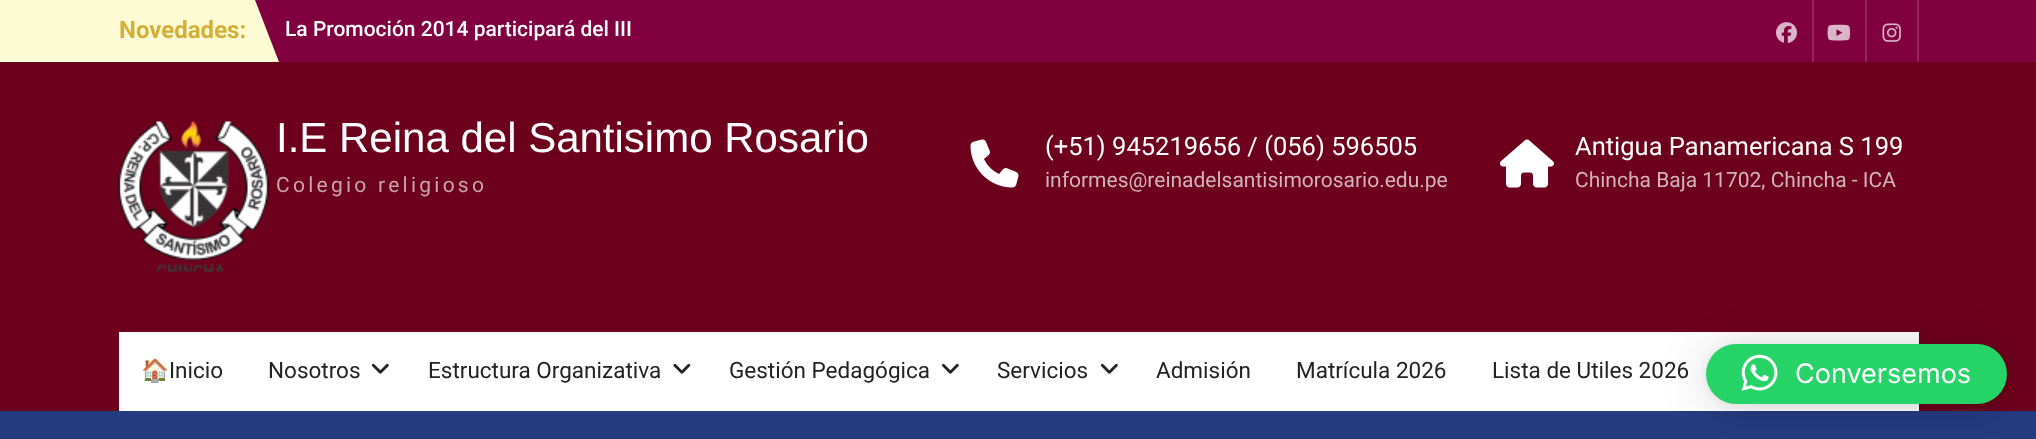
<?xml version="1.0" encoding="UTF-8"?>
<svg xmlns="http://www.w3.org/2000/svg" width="2036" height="439">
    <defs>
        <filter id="blur1" x="-50%" y="-200%" width="200%" height="500%"><feGaussianBlur stdDeviation="24"/></filter>
        <filter id="blur2" x="-50%" y="-200%" width="200%" height="500%"><feGaussianBlur stdDeviation="4.5"/></filter>
    </defs>
    <rect width="100%" height="100%" fill="#6D001C"/>
    <rect x="255" y="0" width="1781" height="62" fill="#800040"/>
    <rect x="0" y="0" width="255" height="62" fill="#FDFBD4"/>
    <text x="119" y="38" font-family="Roboto" font-size="24" font-weight="700" fill="#D4AF37">Novedades:</text>
    <path d="M 255 62 V 0 L 279 62 Z" fill="#FDFBD4"/>
    <text x="285" y="36" font-family="Roboto" font-size="21" font-weight="500" fill="#FFFFFF">La Promoción 2014 participará del III</text>
    <rect x="1812" y="0" width="2" height="62" fill="#93265D"/>
    <image x="1776" y="22" width="21" height="21" href="img_01.png"/>
    <rect x="1865" y="0" width="2" height="62" fill="#93265D"/>
    <image x="1827" y="24" width="23" height="17" href="img_02.png"/>
    <rect x="1917" y="0" width="2" height="62" fill="#93265D"/>
    <image x="1882" y="23" width="19" height="19" href="img_03.png"/>
    <image x="118" y="121" width="151" height="151" href="img_04.png"/>
    <text x="276" y="152" font-family="Liberation Sans" font-size="42" fill="#FFFFFF">I.E Reina del Santisimo Rosario</text>
    <text x="276" y="192" font-family="Roboto" font-size="21" letter-spacing="3.25" fill="#CAA3AD">Colegio religioso</text>
    <image x="970" y="139" width="49" height="49" href="img_05.png"/>
    <text x="1045" y="155" font-family="Roboto" font-size="25.5" fill="#FFFFFF">(+51) 945219656 / (056) 596505</text>
    <text x="1045" y="187" font-family="Roboto" font-size="21" fill="#D3B3BB">informes@reinadelsantisimorosario.edu.pe</text>
    <image x="1500" y="139" width="54" height="49" href="img_06.png"/>
    <text x="1575" y="155" font-family="Roboto" font-size="25.5" fill="#FFFFFF">Antigua Panamericana S 199</text>
    <text x="1575" y="187" font-family="Roboto" font-size="21" fill="#D3B3BB">Chincha Baja 11702, Chincha - ICA</text>
    <rect x="119" y="332" width="1800" height="79" fill="#FFFFFF"/>
    <text x="141" y="378" font-family="Noto Color Emoji" font-size="22.5" fill="#222222">🏠</text>
    <text x="169" y="378" font-family="Roboto" font-size="22.5" fill="#222222">Inicio</text>
    <text x="268" y="378" font-family="Roboto" font-size="22.5" fill="#222222">Nosotros</text>
    <image x="371" y="363" width="18" height="11" href="img_07.png"/>
    <text x="428" y="378" font-family="Roboto" font-size="22.5" fill="#222222">Estructura Organizativa</text>
    <image x="673" y="363" width="18" height="11" href="img_08.png"/>
    <text x="729" y="378" font-family="Roboto" font-size="22.5" fill="#222222">Gestión Pedagógica</text>
    <image x="941" y="363" width="18" height="11" href="img_07.png"/>
    <text x="997" y="378" font-family="Roboto" font-size="22.5" fill="#222222">Servicios</text>
    <image x="1100" y="363" width="18" height="11" href="img_07.png"/>
    <text x="1156" y="378" font-family="Roboto" font-size="22.5" fill="#222222">Admisión</text>
    <text x="1296" y="378" font-family="Roboto" font-size="22.5" fill="#222222">Matrícula 2026</text>
    <text x="1492" y="378" font-family="Roboto" font-size="22.5" fill="#222222">Lista de Utiles 2026</text>
    <rect x="0" y="411" width="2036" height="28" fill="#253B80"/>
    <rect x="1706" y="347" width="301" height="60" rx="30" fill="#000000" fill-opacity="0.16" filter="url(#blur1)"/>
    <rect x="1706" y="345" width="301" height="60" rx="30" fill="#000000" fill-opacity="0.06" filter="url(#blur2)"/>
    <rect x="1706" y="344" width="301" height="60" rx="30" fill="#25D366"/>
    <image x="1741" y="354" width="37" height="37" href="img_09.png"/>
    <text x="1795" y="383" font-family="Inter" font-size="27" fill="#FFFFFF">Conversemos</text>
</svg>
